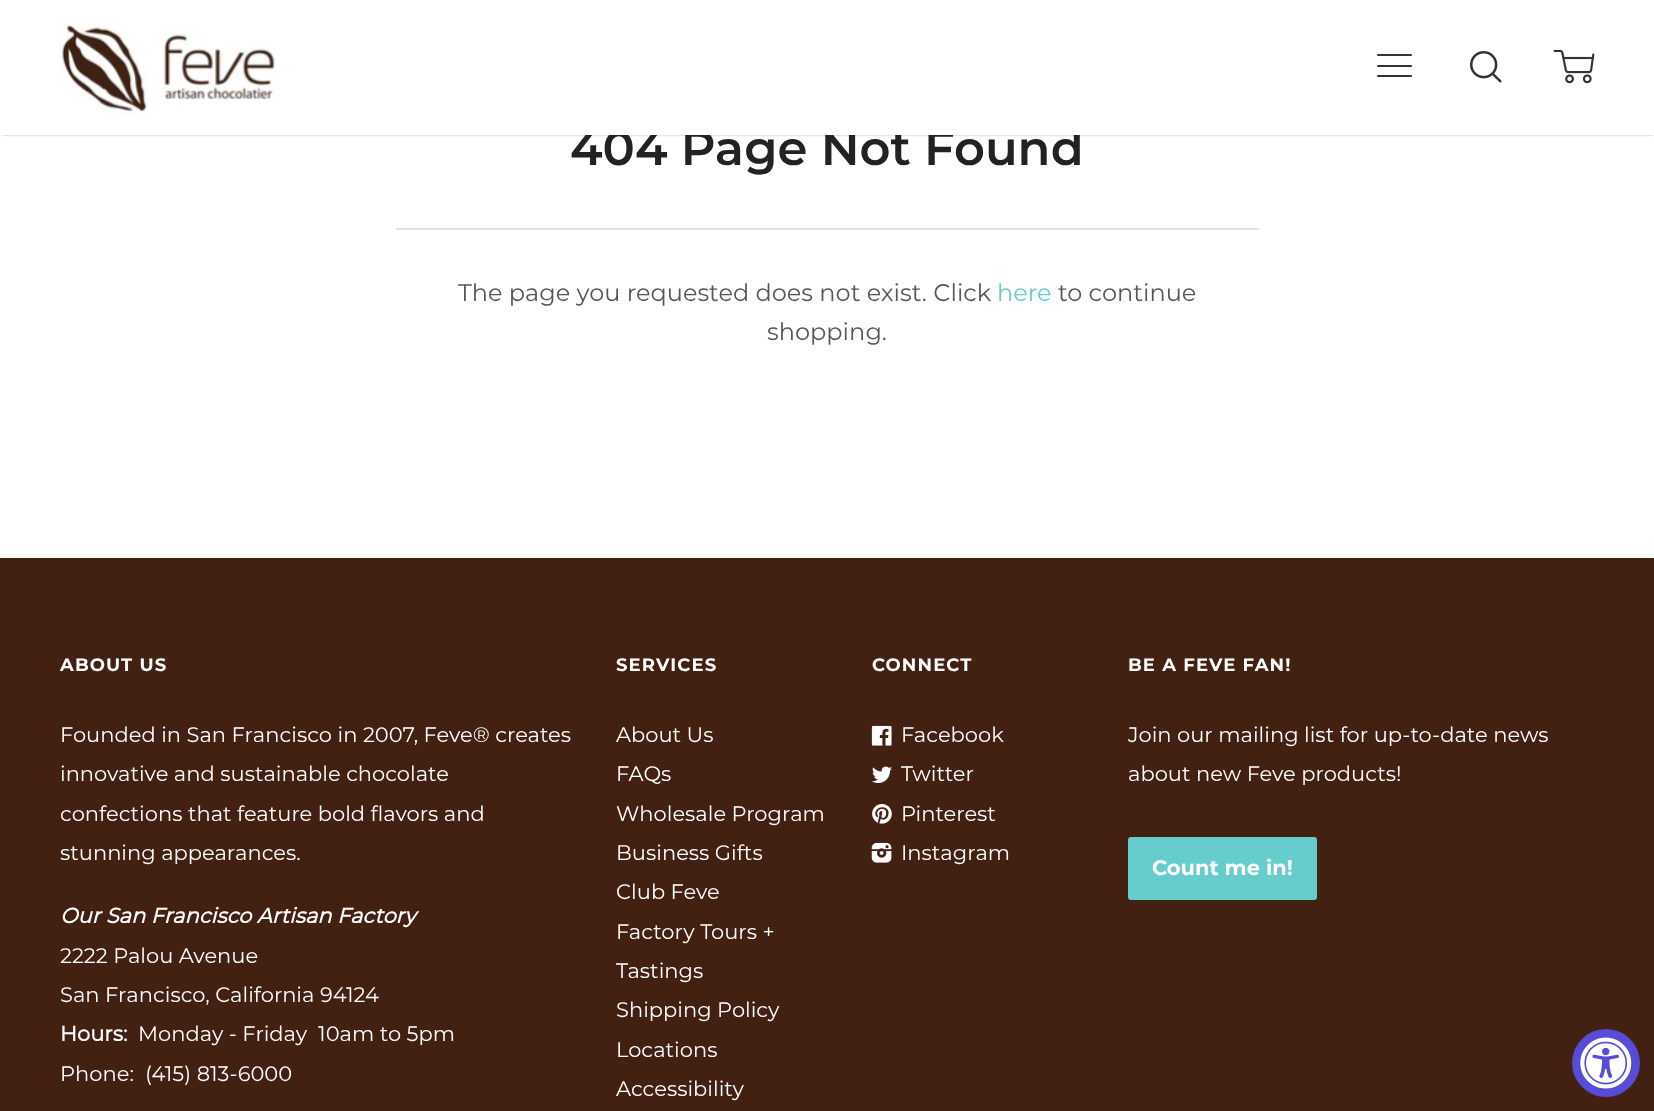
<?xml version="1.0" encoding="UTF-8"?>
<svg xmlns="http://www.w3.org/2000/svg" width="1654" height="1111">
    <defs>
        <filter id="blur1" x="-50%" y="-200%" width="200%" height="500%"><feGaussianBlur stdDeviation="1"/></filter>
    </defs>
    <rect width="100%" height="100%" fill="#FFFFFF"/>
    <rect x="2" y="3" width="1651" height="132" fill="#000000" fill-opacity="0.3" filter="url(#blur1)"/>
    <text x="570" y="165" font-family="Montserrat" font-size="48" font-weight="600" fill="#222222">404 Page Not Found</text>
    <rect x="0" y="1" width="1654" height="134" fill="#FFFFFF"/>
    <image x="60" y="20" width="216" height="96" href="img_01.png"/>
    <rect x="1377" y="54" width="35" height="2" rx="1" fill="#333333"/>
    <rect x="1377" y="65" width="35" height="2" rx="1" fill="#333333"/>
    <rect x="1377" y="75" width="35" height="2" rx="1" fill="#333333"/>
    <image x="1470" y="51" width="32" height="32" href="img_02.png"/>
    <image x="1553" y="50" width="42" height="34" href="img_03.png"/>
    <rect x="396" y="228" width="863" height="2" fill="#E2E2E2"/>
    <text x="458" y="301" font-family="Montserrat" font-size="24" fill="#565656">The page you requested does not exist. Click</text>
    <text x="997" y="301" font-family="Montserrat" font-size="24" fill="#66CCCC">here</text>
    <text x="1058" y="301" font-family="Montserrat" font-size="24" fill="#565656">to continue</text>
    <text x="767" y="340" font-family="Montserrat" font-size="24" fill="#565656">shopping.</text>
    <rect x="0" y="558" width="1654" height="553" fill="#422112"/>
    <text x="60" y="671" font-family="Montserrat" font-size="18" font-weight="700" letter-spacing="1.1" fill="#FFFFFF">ABOUT US</text>
    <text font-family="Montserrat" font-size="21" fill="#FFFFFF">
        <tspan x="60" y="742">Founded in San Francisco in 2007, Feve® creates</tspan>
        <tspan x="60" y="781">innovative and sustainable chocolate</tspan>
        <tspan x="60" y="821">confections that feature bold flavors and</tspan>
        <tspan x="60" y="860">stunning appearances.</tspan>
    </text>
    <text x="60" y="923" font-family="Montserrat" font-size="21" font-weight="700" font-style="italic" fill="#FFFFFF">Our San Francisco Artisan Factory</text>
    <text font-family="Montserrat" font-size="21" fill="#FFFFFF">
        <tspan x="60" y="963">2222 Palou Avenue</tspan>
        <tspan x="60" y="1002">San Francisco, California 94124</tspan>
    </text>
    <text x="60" y="1041" font-family="'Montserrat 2'" font-size="21" font-weight="700" fill="#FFFFFF">Hours:</text>
    <text x="138" y="1041" font-family="Montserrat" font-size="21" fill="#FFFFFF" xml:space="preserve">Monday - Friday  10am to 5pm</text>
    <text x="60" y="1081" font-family="Montserrat" font-size="21" fill="#FFFFFF" xml:space="preserve">Phone:  (415) 813-6000</text>
    <text x="616" y="671" font-family="Montserrat" font-size="18" font-weight="700" letter-spacing="1.1" fill="#FFFFFF">SERVICES</text>
    <text font-family="Montserrat" font-size="21" fill="#FFFFFF">
        <tspan x="616" y="742">About Us</tspan>
        <tspan x="616" y="781">FAQs</tspan>
        <tspan x="616" y="821">Wholesale Program</tspan>
        <tspan x="616" y="860">Business Gifts</tspan>
        <tspan x="616" y="899">Club Feve</tspan>
        <tspan x="616" y="939">Factory Tours +</tspan>
        <tspan x="616" y="978">Tastings</tspan>
        <tspan x="616" y="1017">Shipping Policy</tspan>
        <tspan x="616" y="1057">Locations</tspan>
        <tspan x="616" y="1096">Accessibility</tspan>
    </text>
    <text x="872" y="671" font-family="Montserrat" font-size="18" font-weight="700" letter-spacing="1.1" fill="#FFFFFF">CONNECT</text>
    <image x="871" y="725" width="21" height="21" href="img_04.png"/>
    <text x="901" y="742" font-family="Montserrat" font-size="21" fill="#FFFFFF">Facebook</text>
    <image x="872" y="766" width="20" height="17" href="img_05.png"/>
    <text x="901" y="781" font-family="Montserrat" font-size="21" fill="#FFFFFF">Twitter</text>
    <image x="872" y="804" width="20" height="20" href="img_06.png"/>
    <text x="901" y="821" font-family="Montserrat" font-size="21" fill="#FFFFFF">Pinterest</text>
    <image x="871" y="842" width="21" height="21" href="img_07.png"/>
    <text x="901" y="860" font-family="Montserrat" font-size="21" fill="#FFFFFF">Instagram</text>
    <text x="1128" y="671" font-family="Montserrat" font-size="18" font-weight="700" letter-spacing="1.1" fill="#FFFFFF">BE A FEVE FAN!</text>
    <text font-family="Montserrat" font-size="21" fill="#FFFFFF">
        <tspan x="1128" y="742">Join our mailing list for up-to-date news</tspan>
        <tspan x="1128" y="781">about new Feve products!</tspan>
    </text>
    <rect x="1128" y="837" width="189" height="63" rx="3" fill="#66CCCC"/>
    <text x="1152" y="875" font-family="Montserrat" font-size="21" font-weight="700" fill="#FFFFFF">Count me in!</text>
    <circle cx="1606" cy="1063" r="34" fill="#574CD5"/>
    <image x="1580" y="1037" width="52" height="52" href="img_08.png"/>
</svg>
